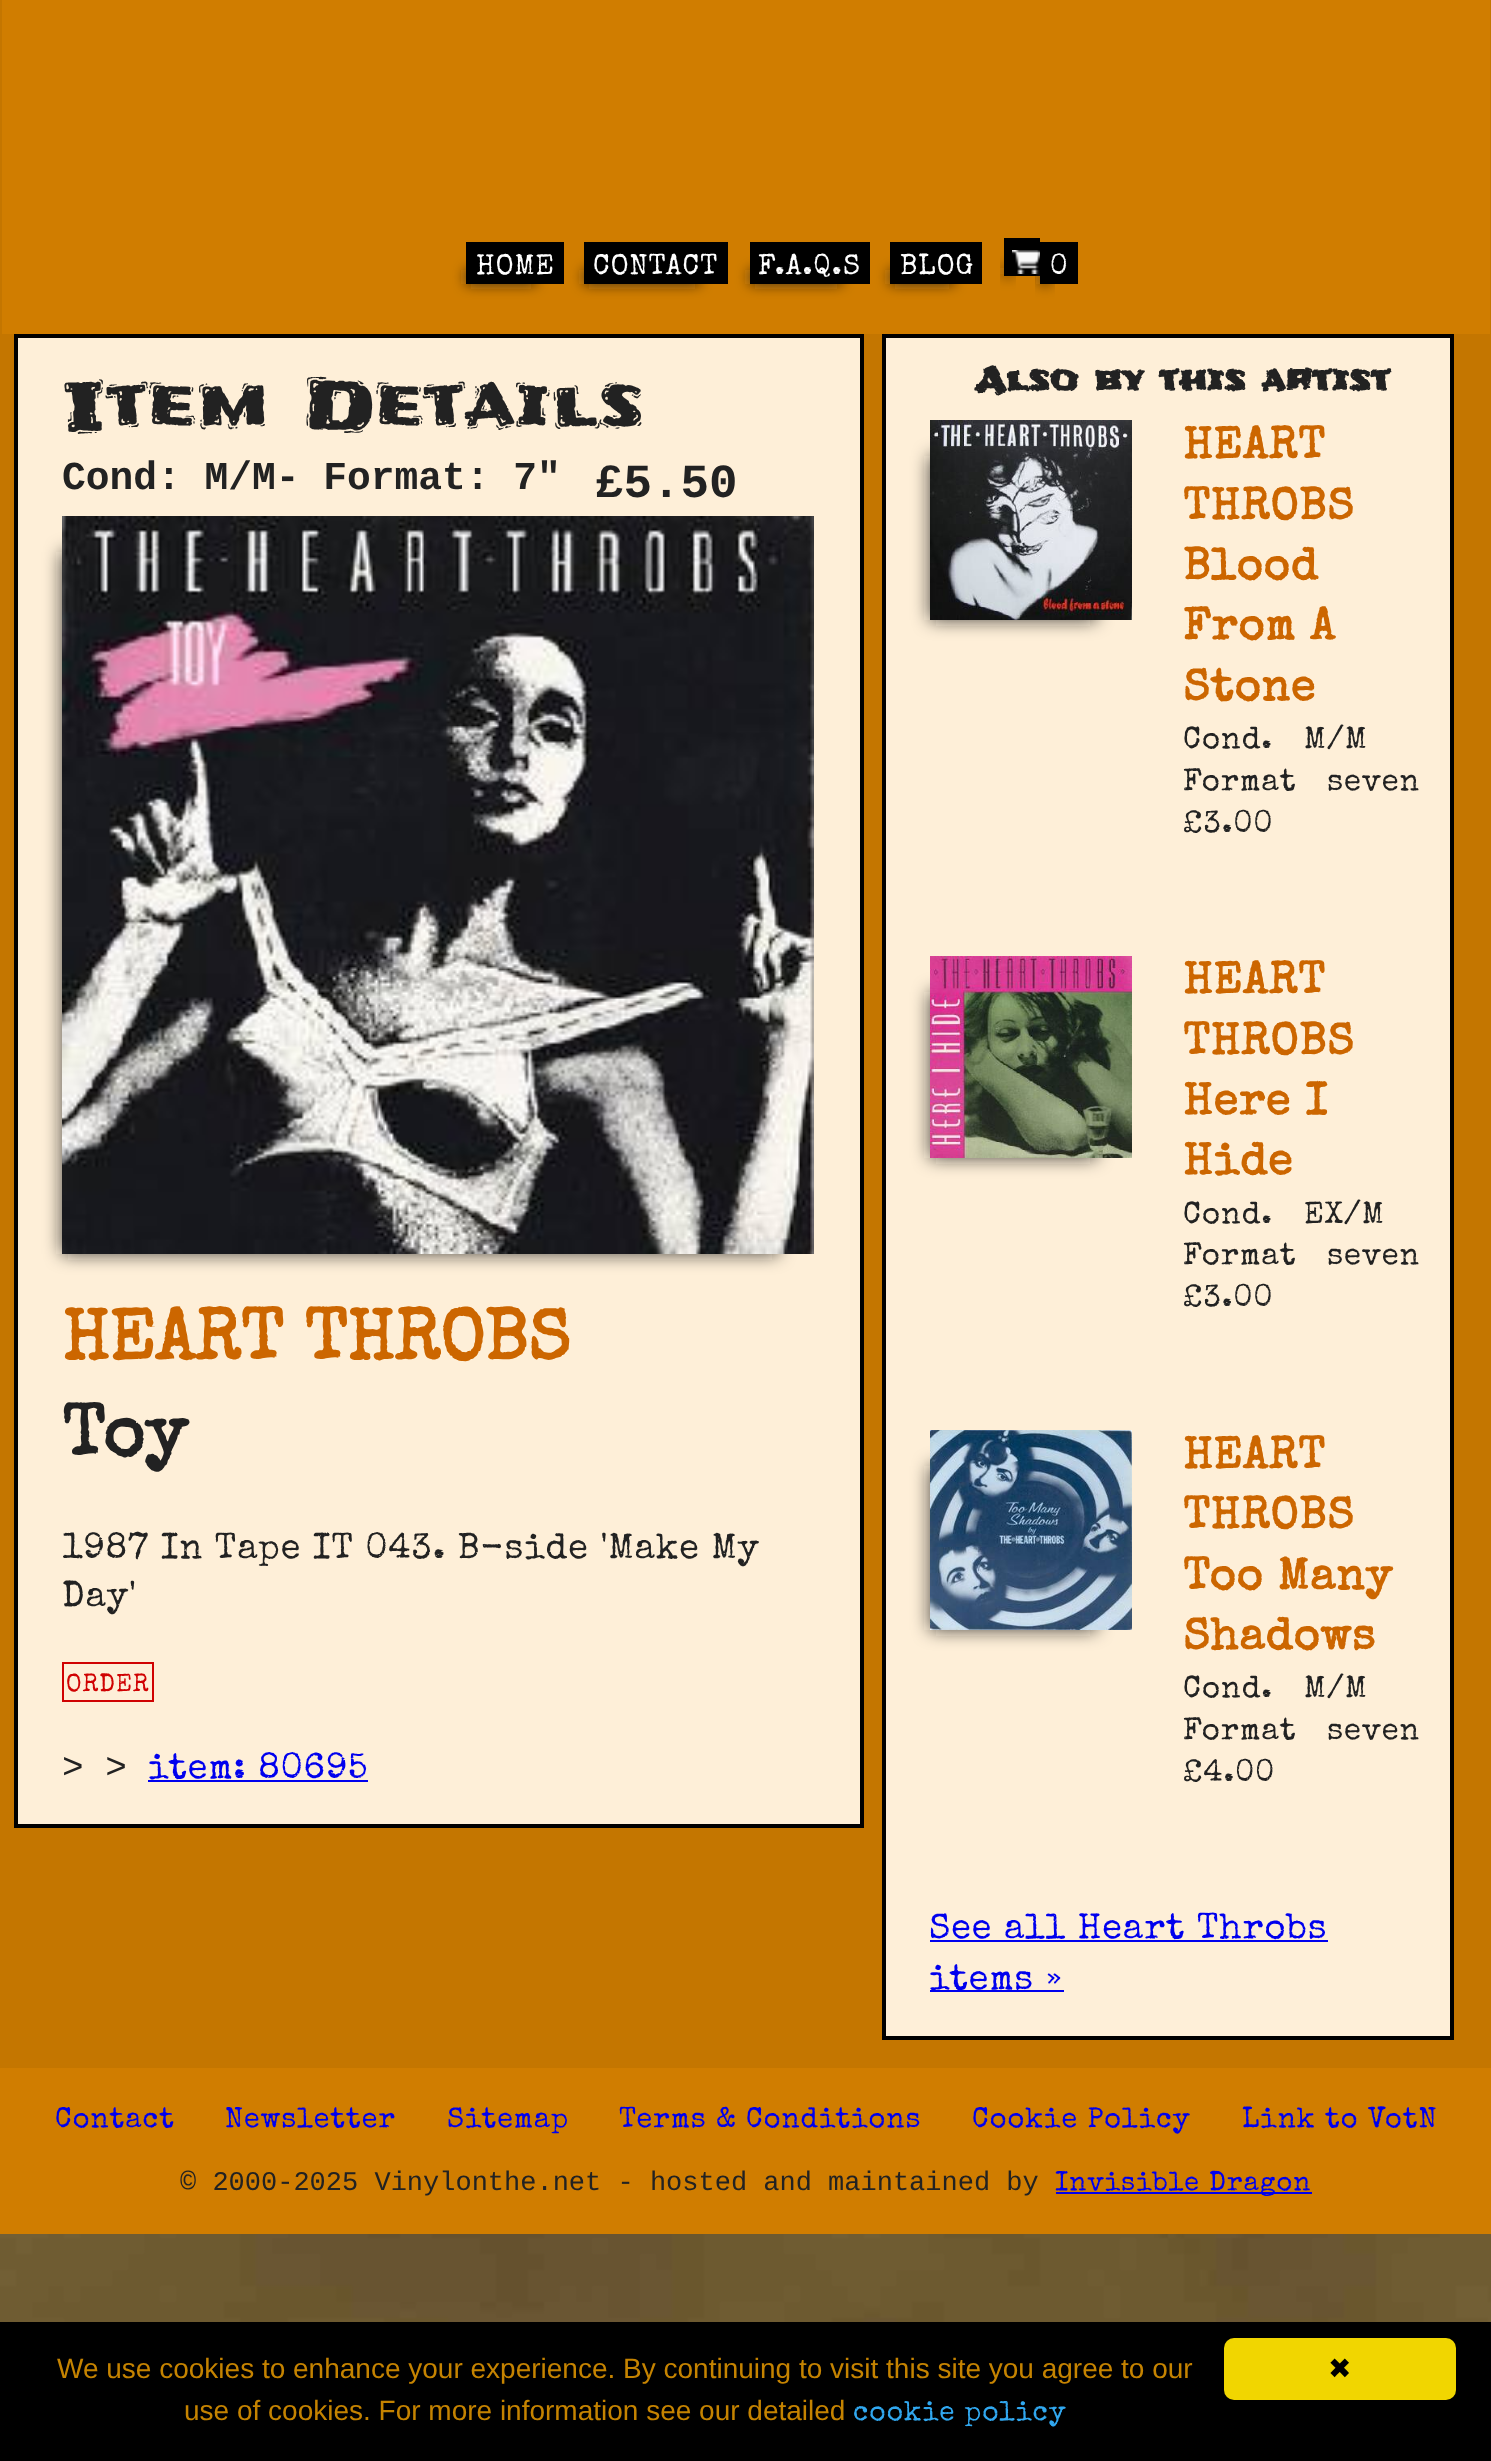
<?xml version="1.0" encoding="UTF-8"?>
<svg xmlns="http://www.w3.org/2000/svg" width="1491" height="2461">
    <defs>
        <filter id="blur1" x="-50%" y="-200%" width="200%" height="500%"><feGaussianBlur stdDeviation="7"/></filter>
        <filter id="blur2" x="-50%" y="-200%" width="200%" height="500%"><feGaussianBlur stdDeviation="9"/></filter>
    </defs>
    <rect width="100%" height="100%" fill="#FFFFFF"/>
    <image x="0" y="2234" width="1491" height="88" href="img_01.png"/>
    <rect x="0" y="0" width="1491" height="2068" fill="#C47600"/>
    <rect x="2" y="0" width="1488" height="334" fill="#D07D00"/>
    <rect x="466" y="270" width="70" height="14" fill="#161616" fill-opacity="0.8" filter="url(#blur1)"/>
    <rect x="466" y="242" width="98" height="42" fill="#000000"/>
    <text x="476" y="274" font-family="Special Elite" font-size="28.75" letter-spacing="1" fill="#FFFFFF">HOME</text>
    <rect x="584" y="270" width="116" height="14" fill="#161616" fill-opacity="0.8" filter="url(#blur1)"/>
    <rect x="584" y="242" width="144" height="42" fill="#000000"/>
    <text x="593" y="274" font-family="Special Elite" font-size="28.75" letter-spacing="1" fill="#FFFFFF">CONTACT</text>
    <rect x="750" y="270" width="92" height="14" fill="#161616" fill-opacity="0.8" filter="url(#blur1)"/>
    <rect x="750" y="242" width="120" height="42" fill="#000000"/>
    <text x="758" y="274" font-family="Special Elite" font-size="28.75" letter-spacing="1" fill="#FFFFFF">F.A.Q.S</text>
    <rect x="890" y="270" width="64" height="14" fill="#161616" fill-opacity="0.8" filter="url(#blur1)"/>
    <rect x="890" y="242" width="92" height="42" fill="#000000"/>
    <text x="900" y="274" font-family="Special Elite" font-size="28.75" letter-spacing="1" fill="#FFFFFF">BLOG</text>
    <rect x="1004" y="266" width="8" height="10" fill="#161616" fill-opacity="0.8" filter="url(#blur1)"/>
    <rect x="1004" y="238" width="36" height="38" fill="#000000"/>
    <rect x="1040" y="270" width="10" height="14" fill="#161616" fill-opacity="0.8" filter="url(#blur1)"/>
    <image x="1012" y="250" width="28" height="24" href="img_02.png"/>
    <rect x="1040" y="242" width="38" height="42" fill="#000000"/>
    <text x="1050" y="274" font-family="Special Elite" font-size="28.75" letter-spacing="1" fill="#FFFFFF">0</text>
    <rect x="16" y="336" width="846" height="1490" fill="#FEEFD8" stroke="#000000" stroke-width="4"/>
    <text x="62" y="430" font-family="Frijole" font-size="68.5" fill="#222222">Item Details</text>
    <text x="62" y="489" font-family="Liberation Mono" font-size="39.6" font-weight="700" fill="#222222">Cond: M/M- Format: 7"</text>
    <text x="595" y="497" font-family="Liberation Mono" font-size="47.5" font-weight="700" fill="#222222">£5.50</text>
    <rect x="62" y="552" width="716" height="702" fill="#161616" fill-opacity="0.8" filter="url(#blur2)"/>
    <image x="62" y="516" width="752" height="738" href="img_03.png"/>
    <text x="62" y="1359" font-family="Special Elite" font-size="72" font-weight="700" fill="#CC6600">HEART THROBS</text>
    <text x="62" y="1455" font-family="Special Elite" font-size="72" font-weight="700" fill="#222222">Toy</text>
    <text font-family="Special Elite" font-size="36" letter-spacing="1" fill="#222222">
        <tspan x="62" y="1558">1987 In Tape IT 043. B-side 'Make My</tspan>
        <tspan x="62" y="1606">Day'</tspan>
    </text>
    <rect x="63" y="1663" width="90" height="38" fill="none" stroke="#D00202" stroke-width="2"/>
    <text x="66" y="1691" font-family="Special Elite" font-size="25" letter-spacing="1" fill="#D00202">ORDER</text>
    <text x="62" y="1778" font-family="Liberation Mono" font-size="36" fill="#222222">&gt; &gt;</text>
    <text x="148" y="1778" font-family="Special Elite" font-size="36" letter-spacing="1" fill="#0000EE">item: 80695</text>
    <rect x="148" y="1780" width="220" height="2" fill="#0000EE"/>
    <rect x="884" y="336" width="568" height="1702" fill="#FEEFD8" stroke="#000000" stroke-width="4"/>
    <text x="975" y="392" font-family="Frijole" font-size="32.4" font-weight="700" fill="#222222">Also by this artist</text>
    <rect x="930" y="456" width="166" height="164" fill="#161616" fill-opacity="0.8" filter="url(#blur2)"/>
    <image x="930" y="420" width="202" height="200" href="img_04.png"/>
    <text font-family="Special Elite" font-size="44.75" font-weight="700" letter-spacing="1" fill="#CC6600">
        <tspan x="1183" y="458">HEART</tspan>
        <tspan x="1183" y="519">THROBS</tspan>
        <tspan x="1183" y="579">Blood</tspan>
        <tspan x="1183" y="639">From A</tspan>
        <tspan x="1183" y="700">Stone</tspan>
    </text>
    <text x="1183" y="748" font-family="Special Elite" font-size="31" letter-spacing="1" fill="#222222">Cond.</text>
    <text x="1304" y="748" font-family="Special Elite" font-size="31" letter-spacing="1" fill="#222222">M/M</text>
    <text x="1183" y="790" font-family="Special Elite" font-size="31" letter-spacing="1" fill="#222222">Format</text>
    <text x="1327" y="790" font-family="Special Elite" font-size="31" letter-spacing="1" fill="#222222">seven</text>
    <text x="1183" y="832" font-family="Special Elite" font-size="31" letter-spacing="1" fill="#222222">£3.00</text>
    <rect x="930" y="992" width="166" height="166" fill="#161616" fill-opacity="0.8" filter="url(#blur2)"/>
    <image x="930" y="956" width="202" height="202" href="img_05.png"/>
    <text font-family="Special Elite" font-size="44.75" font-weight="700" letter-spacing="1" fill="#CC6600">
        <tspan x="1183" y="993">HEART</tspan>
        <tspan x="1183" y="1054">THROBS</tspan>
        <tspan x="1183" y="1114">Here I</tspan>
        <tspan x="1183" y="1174">Hide</tspan>
    </text>
    <text x="1183" y="1223" font-family="Special Elite" font-size="31" letter-spacing="1" fill="#222222">Cond.</text>
    <text x="1304" y="1223" font-family="Special Elite" font-size="31" letter-spacing="1" fill="#222222">EX/M</text>
    <text x="1183" y="1264" font-family="Special Elite" font-size="31" letter-spacing="1" fill="#222222">Format</text>
    <text x="1327" y="1264" font-family="Special Elite" font-size="31" letter-spacing="1" fill="#222222">seven</text>
    <text x="1183" y="1306" font-family="Special Elite" font-size="31" letter-spacing="1" fill="#222222">£3.00</text>
    <rect x="930" y="1466" width="166" height="164" fill="#161616" fill-opacity="0.8" filter="url(#blur2)"/>
    <image x="930" y="1430" width="202" height="200" href="img_06.png"/>
    <text font-family="Special Elite" font-size="44.75" font-weight="700" letter-spacing="1" fill="#CC6600">
        <tspan x="1183" y="1468">HEART</tspan>
        <tspan x="1183" y="1528">THROBS</tspan>
        <tspan x="1183" y="1589">Too Many</tspan>
        <tspan x="1183" y="1649">Shadows</tspan>
    </text>
    <text x="1183" y="1697" font-family="Special Elite" font-size="31" letter-spacing="1" fill="#222222">Cond.</text>
    <text x="1304" y="1697" font-family="Special Elite" font-size="31" letter-spacing="1" fill="#222222">M/M</text>
    <text x="1183" y="1739" font-family="Special Elite" font-size="31" letter-spacing="1" fill="#222222">Format</text>
    <text x="1327" y="1739" font-family="Special Elite" font-size="31" letter-spacing="1" fill="#222222">seven</text>
    <text x="1183" y="1781" font-family="Special Elite" font-size="31" letter-spacing="1" fill="#222222">£4.00</text>
    <text x="929" y="1938" font-family="Special Elite" font-size="36" letter-spacing="1" fill="#0000EE">See all Heart Throbs</text>
    <rect x="930" y="1940" width="398" height="2" fill="#0000EE"/>
    <rect x="930" y="1990" width="134" height="2" fill="#0000EE"/>
    <text x="929" y="1989" font-family="Special Elite" font-size="36" letter-spacing="1" fill="#0000EE">items »</text>
    <rect x="0" y="2068" width="1491" height="166" fill="#D07D00"/>
    <text x="55" y="2127" font-family="Special Elite" font-size="28.75" letter-spacing="1" fill="#0000EE">Contact</text>
    <text x="225" y="2127" font-family="Special Elite" font-size="28.75" letter-spacing="1" fill="#0000EE">Newsletter</text>
    <text x="447" y="2127" font-family="Special Elite" font-size="28.75" letter-spacing="1" fill="#0000EE">Sitemap</text>
    <text x="619" y="2127" font-family="Special Elite" font-size="28.75" letter-spacing="1" fill="#0000EE">Terms &amp; Conditions</text>
    <text x="972" y="2127" font-family="Special Elite" font-size="28.75" letter-spacing="1" fill="#0000EE">Cookie Policy</text>
    <text x="1242" y="2127" font-family="Special Elite" font-size="28.75" letter-spacing="1" fill="#0000EE">Link to VotN</text>
    <text x="180" y="2190" font-family="Liberation Mono" font-size="27" fill="#222222">© 2000-2025 Vinylonthe.net - hosted and maintained by</text>
    <rect x="1056" y="2192" width="256" height="2" fill="#0000EE"/>
    <text x="1055" y="2190" font-family="Special Elite" font-size="27" letter-spacing="1" fill="#0000EE">Invisible Dragon</text>
    <rect x="0" y="2322" width="1491" height="139" fill="#000000"/>
    <text x="57" y="2378" font-family="Liberation Sans" font-size="28" fill="#C58300">We use cookies to enhance your experience. By continuing to visit this site you agree to our</text>
    <text x="184" y="2420" font-family="Liberation Sans" font-size="28" fill="#C58300">use of cookies. For more information see our detailed</text>
    <text x="853" y="2420" font-family="Special Elite" font-size="28" letter-spacing="1" fill="#31A8F0">cookie policy</text>
    <rect x="1224" y="2338" width="232" height="62" rx="10" fill="#F1D600"/>
    <text x="1328" y="2378" font-family="DejaVu Sans" font-size="28" fill="#000000">✖</text>
</svg>
